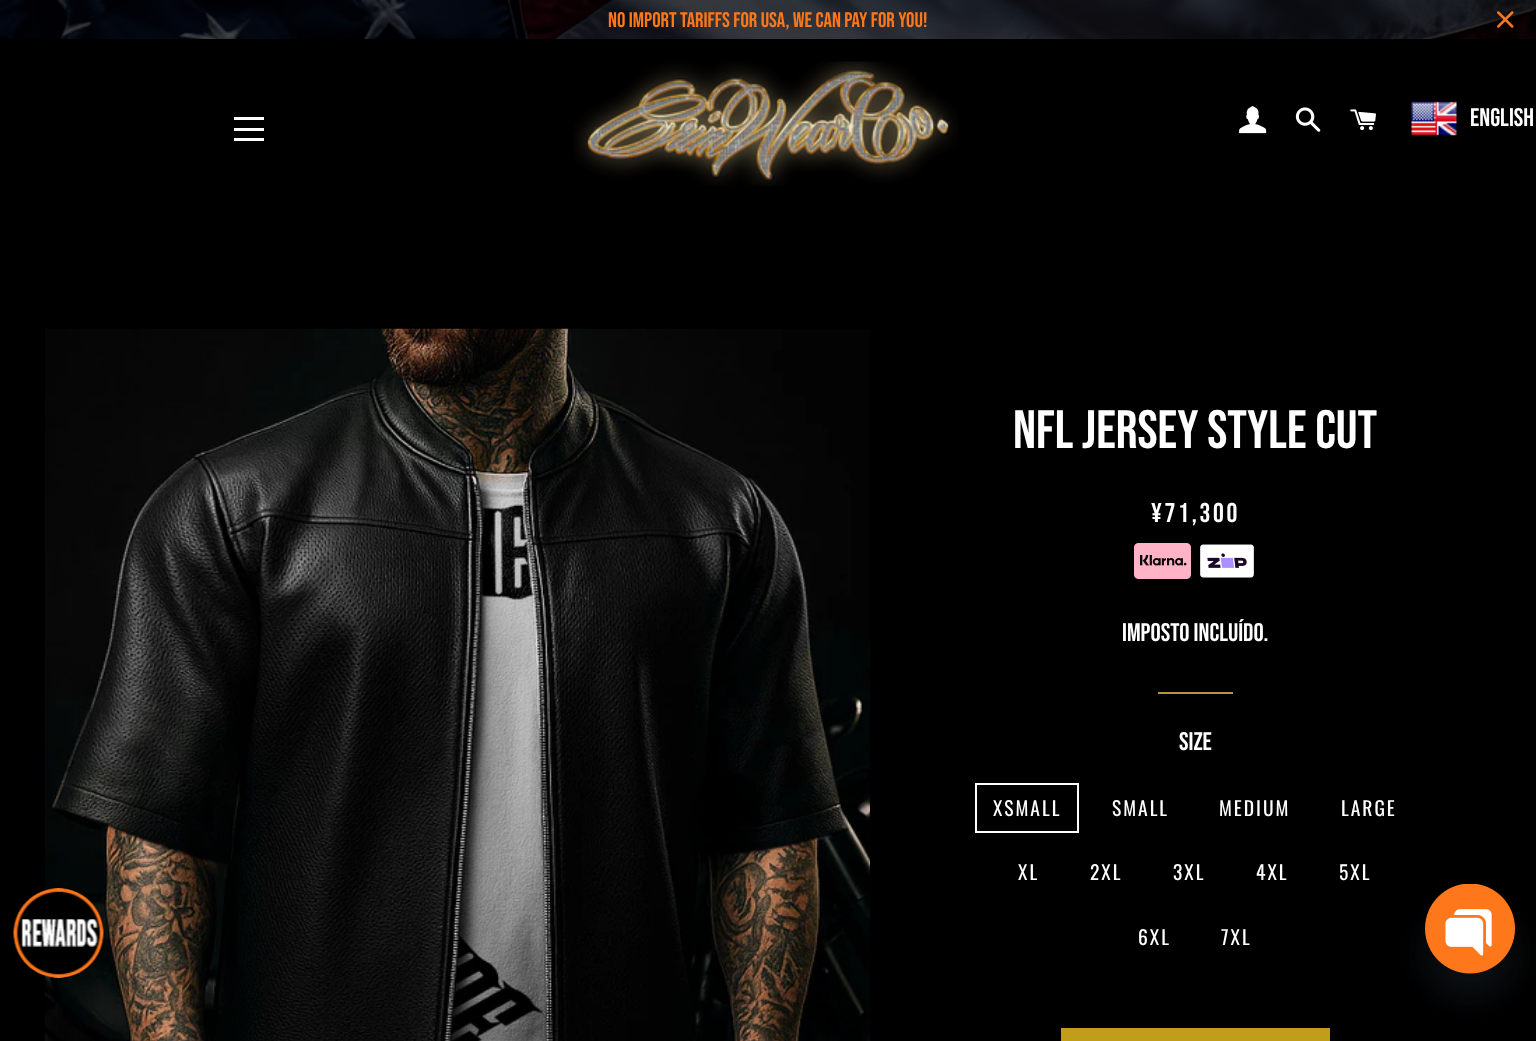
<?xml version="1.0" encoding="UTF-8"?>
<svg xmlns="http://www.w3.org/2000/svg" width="1536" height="1041">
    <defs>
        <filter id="blur1" x="-50%" y="-200%" width="200%" height="500%"><feGaussianBlur stdDeviation="18"/></filter>
    </defs>
    <rect width="100%" height="100%" fill="#000000"/>
    <image x="0" y="0" width="1536" height="39" href="img_01.png"/>
    <text x="608" y="27" font-family="Bebas Neue" font-size="21" fill="#FF771B">NO IMPORT TARIFFS FOR USA, WE CAN PAY FOR YOU!</text>
    <image x="1497" y="11" width="17" height="17" href="img_02.png"/>
    <rect x="234" y="117" width="30" height="3" fill="#FFFFFF"/>
    <rect x="234" y="128" width="30" height="3" fill="#FFFFFF"/>
    <rect x="234" y="138" width="30" height="3" fill="#FFFFFF"/>
    <image x="573" y="61" width="385" height="125" href="img_03.png"/>
    <image x="1239" y="106" width="28" height="28" href="img_04.png"/>
    <image x="1295" y="107" width="26" height="25" href="img_05.png"/>
    <image x="1350" y="109" width="26" height="22" href="img_06.png"/>
    <image x="1411" y="101" width="46" height="35" href="img_07.png"/>
    <text x="1470" y="126" font-family="Bebas Neue" font-size="25.5" fill="#FFFFFF">English</text>
    <image x="45" y="328" width="825" height="713" href="img_08.png"/>
    <text x="1013" y="448" font-family="Bebas Neue" font-size="54" fill="#FFFFFF">NFL Jersey Style Cut</text>
    <text x="1151" y="522" font-family="Bebas Neue" font-size="27" letter-spacing="2.75" fill="#FFFFFF">¥71,300</text>
    <image x="1134" y="543" width="57" height="36" href="img_09.png"/>
    <image x="1200" y="544" width="54" height="34" href="img_10.png"/>
    <text x="1122" y="641" font-family="Bebas Neue" font-size="25.5" fill="#FFFFFF">Imposto incluído.</text>
    <rect x="1158" y="692" width="75" height="2" fill="#BA9144"/>
    <text x="1179" y="750" font-family="Bebas Neue" font-size="25.5" fill="#FFFFFF">Size</text>
    <rect x="976" y="784" width="102" height="48" fill="none" stroke="#FFFFFF" stroke-width="2"/>
    <text x="993" y="816" font-family="Oswald" font-size="19.5" letter-spacing="2" fill="#FFFFFF">XSMALL</text>
    <text x="1112" y="816" font-family="Oswald" font-size="19.5" letter-spacing="2" fill="#FFFFFF">SMALL</text>
    <text x="1219" y="816" font-family="Oswald" font-size="19.5" letter-spacing="2" fill="#FFFFFF">MEDIUM</text>
    <text x="1341" y="816" font-family="Oswald" font-size="19.5" letter-spacing="2" fill="#FFFFFF">LARGE</text>
    <text x="1018" y="880" font-family="Oswald" font-size="19.5" letter-spacing="2" fill="#FFFFFF">XL</text>
    <text x="1090" y="880" font-family="Oswald" font-size="19.5" letter-spacing="2" fill="#FFFFFF">2XL</text>
    <text x="1173" y="880" font-family="Oswald" font-size="19.5" letter-spacing="2" fill="#FFFFFF">3XL</text>
    <text x="1256" y="880" font-family="Oswald" font-size="19.5" letter-spacing="2" fill="#FFFFFF">4XL</text>
    <text x="1339" y="880" font-family="Oswald" font-size="19.5" letter-spacing="2" fill="#FFFFFF">5XL</text>
    <text x="1138" y="945" font-family="Oswald" font-size="19.5" letter-spacing="2" fill="#FFFFFF">6XL</text>
    <text x="1221" y="945" font-family="Oswald" font-size="19.5" letter-spacing="2" fill="#FFFFFF">7XL</text>
    <rect x="1061" y="1028" width="269" height="13" fill="#C09E1A"/>
    <circle cx="59" cy="933" r="45" fill="#000000"/>
    <image x="13" y="888" width="91" height="90" href="img_11.png"/>
    <rect x="1425" y="908" width="90" height="90" rx="45" fill="#49687E" fill-opacity="0.16" filter="url(#blur1)"/>
    <image x="1425" y="884" width="90" height="90" href="img_12.png"/>
</svg>
